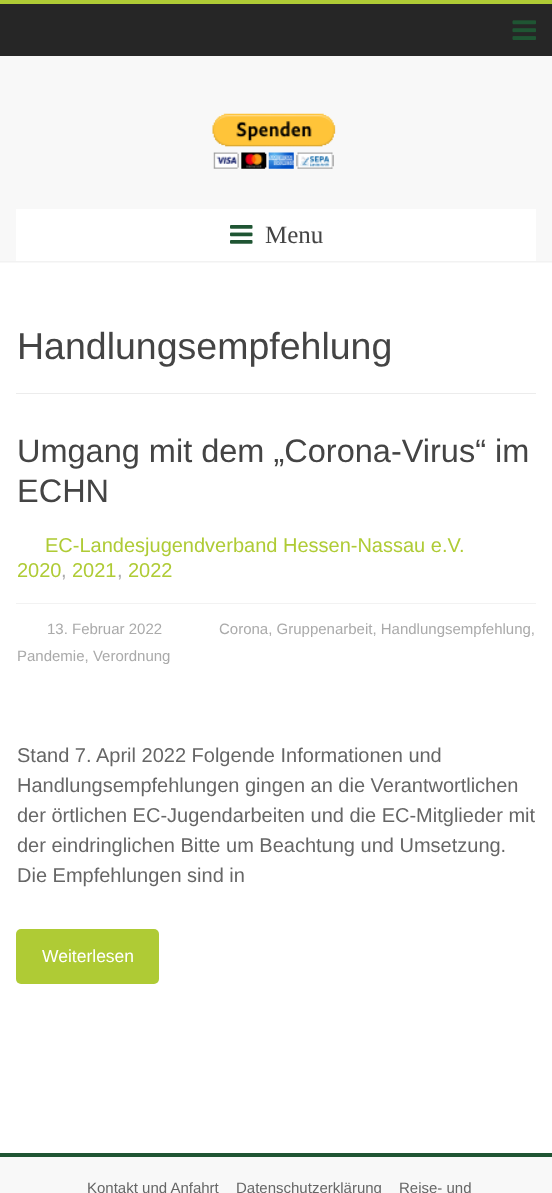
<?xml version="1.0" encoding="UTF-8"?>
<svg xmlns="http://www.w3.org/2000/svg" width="552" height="1193">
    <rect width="100%" height="100%" fill="#FFFFFF"/>
    <rect x="0" y="0" width="552" height="4" fill="#AFCB35"/>
    <rect x="0" y="4" width="552" height="52" fill="#262626"/>
    <image x="512" y="20" width="24" height="20" href="img_01.png"/>
    <rect x="0" y="56" width="552" height="207" fill="#F8F8F8"/>
    <rect x="0" y="261" width="552" height="1" fill="#F2F2F2"/>
    <image x="212" y="113" width="124" height="56" href="img_02.png"/>
    <rect x="16" y="209" width="520" height="52" fill="#FFFFFF"/>
    <image x="230" y="225" width="23" height="19" href="img_03.png"/>
    <text x="265" y="243" font-family="Liberation Serif" font-size="25" fill="#444444">Menu</text>
    <rect x="16" y="393" width="520" height="1" fill="#ECECEC"/>
    <text x="17" y="359" font-family="Liberation Sans" font-size="37.5" fill="#444444">Handlungsempfehlung</text>
    <text font-family="Liberation Sans" font-size="32.5" fill="#444444">
        <tspan x="17" y="462">Umgang mit dem „Corona-Virus“ im</tspan>
        <tspan x="17" y="502">ECHN</tspan>
    </text>
    <text x="45" y="552" font-family="Liberation Sans" font-size="20" fill="#AFCB35">EC-Landesjugendverband Hessen-Nassau e.V.</text>
    <text x="17" y="577" font-family="Liberation Sans" font-size="20" fill="#AFCB35">2020</text>
    <text x="61" y="577" font-family="Liberation Sans" font-size="20" fill="#AAAAAA">,</text>
    <text x="72" y="577" font-family="Liberation Sans" font-size="20" fill="#AFCB35">2021</text>
    <text x="117" y="577" font-family="Liberation Sans" font-size="20" fill="#AAAAAA">,</text>
    <text x="128" y="577" font-family="Liberation Sans" font-size="20" fill="#AFCB35">2022</text>
    <rect x="16" y="603" width="520" height="1" fill="#F2F2F2"/>
    <text x="47" y="634" font-family="Liberation Sans" font-size="15" fill="#AAAAAA">13. Februar 2022</text>
    <text x="219" y="634" font-family="Liberation Sans" font-size="15" fill="#AAAAAA">Corona, Gruppenarbeit, Handlungsempfehlung,</text>
    <text x="17" y="661" font-family="Liberation Sans" font-size="15" fill="#AAAAAA">Pandemie, Verordnung</text>
    <text font-family="Liberation Sans" font-size="20" fill="#666666">
        <tspan x="17" y="762">Stand 7. April 2022 Folgende Informationen und</tspan>
        <tspan x="17" y="792">Handlungsempfehlungen gingen an die Verantwortlichen</tspan>
        <tspan x="17" y="822">der örtlichen EC-Jugendarbeiten und die EC-Mitglieder mit</tspan>
        <tspan x="17" y="852">der eindringlichen Bitte um Beachtung und Umsetzung.</tspan>
        <tspan x="17" y="882">Die Empfehlungen sind in</tspan>
    </text>
    <rect x="16" y="929" width="143" height="55" rx="5" fill="#AFCB35"/>
    <text x="42" y="962" font-family="Liberation Sans" font-size="17.5" fill="#FFFFFF">Weiterlesen</text>
    <rect x="0" y="1157" width="552" height="36" fill="#F8F8F8"/>
    <rect x="0" y="1153" width="552" height="4" fill="#1F5533"/>
    <text x="87" y="1193" font-family="Liberation Sans" font-size="15" fill="#666666">Kontakt und Anfahrt</text>
    <text x="236" y="1193" font-family="Liberation Sans" font-size="15" fill="#666666">Datenschutzerklärung</text>
    <text x="399" y="1193" font-family="Liberation Sans" font-size="15" fill="#666666">Reise- und</text>
</svg>
